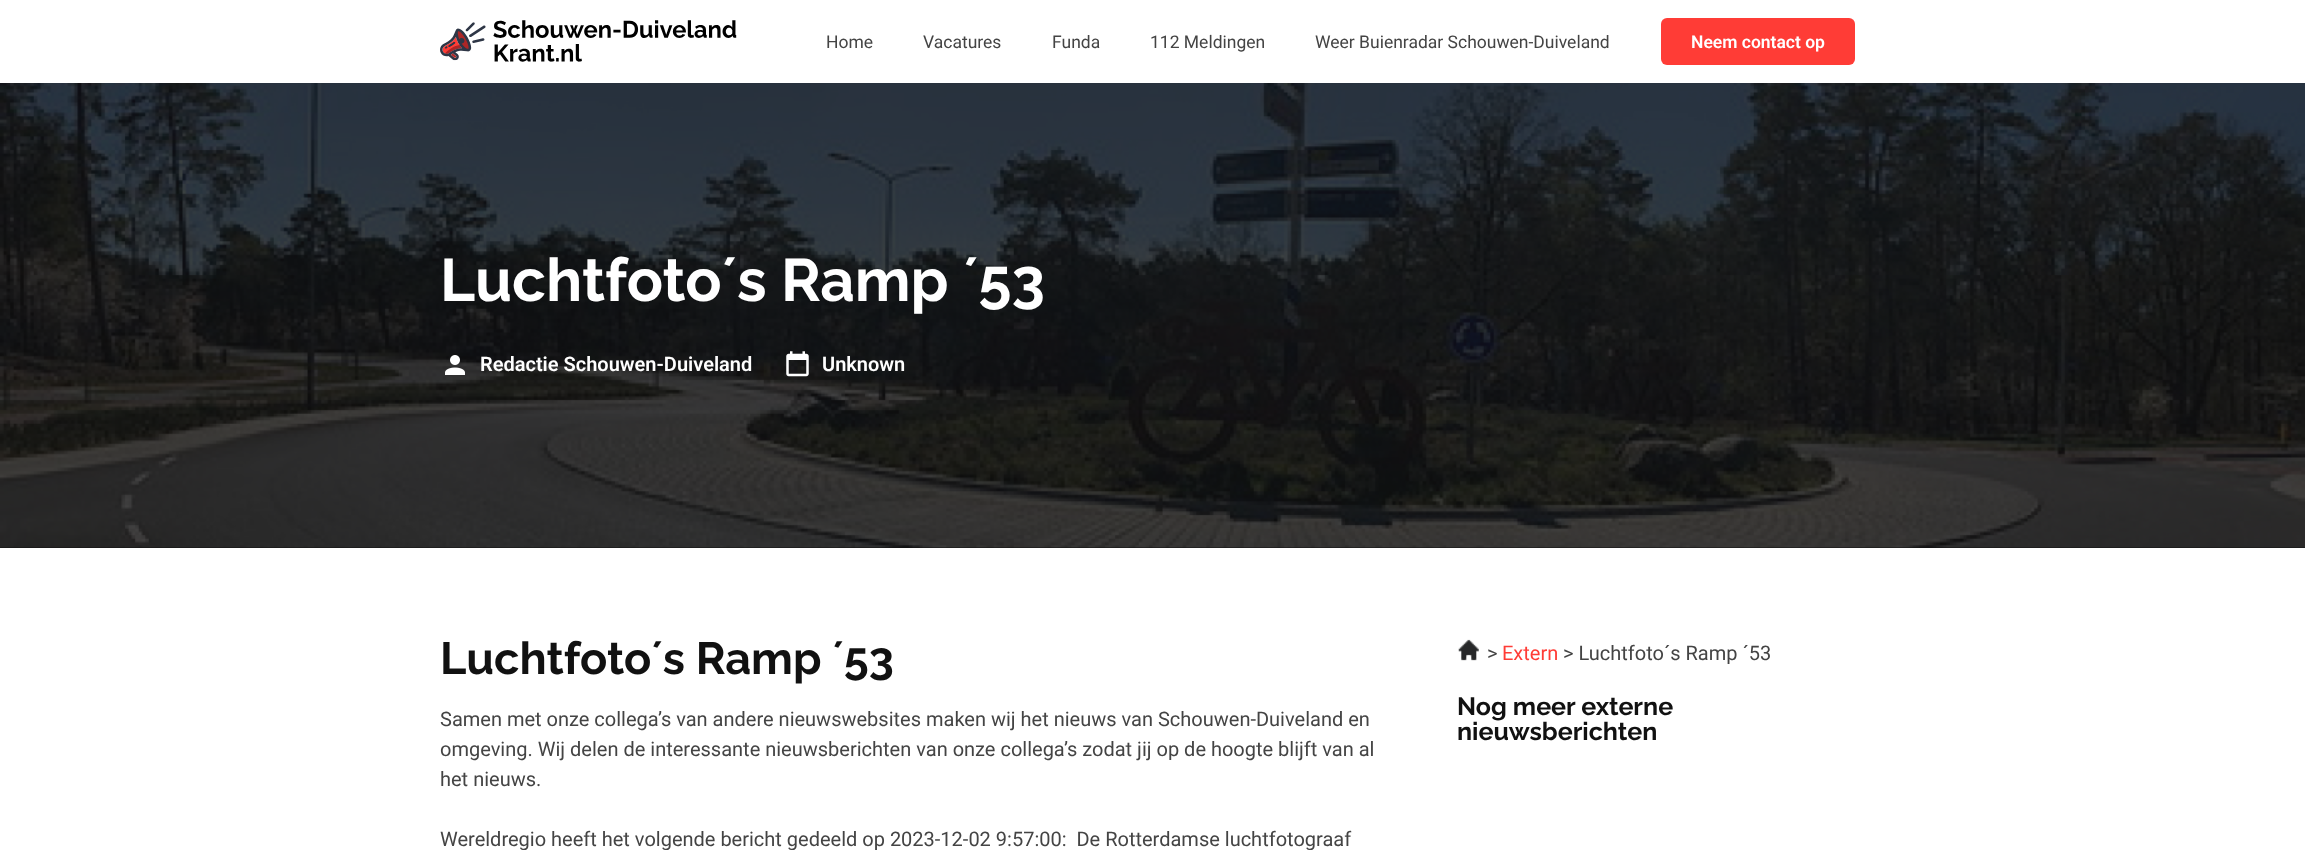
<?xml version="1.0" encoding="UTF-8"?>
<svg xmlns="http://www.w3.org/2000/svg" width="2305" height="850">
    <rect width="100%" height="100%" fill="#FFFFFF"/>
    <image x="440" y="20" width="297" height="42" href="img_01.png"/>
    <text x="826" y="48" font-family="Roboto" font-size="17.5" fill="#444444">Home</text>
    <text x="923" y="48" font-family="Roboto" font-size="17.5" fill="#444444">Vacatures</text>
    <text x="1052" y="48" font-family="Roboto" font-size="17.5" fill="#444444">Funda</text>
    <text x="1150" y="48" font-family="Roboto" font-size="17.5" fill="#444444">112 Meldingen</text>
    <text x="1315" y="48" font-family="Roboto" font-size="17.5" fill="#444444">Weer Buienradar Schouwen-Duiveland</text>
    <rect x="1661" y="18" width="194" height="47" rx="6" fill="#FF3C36"/>
    <text x="1691" y="48" font-family="Roboto" font-size="17.5" font-weight="600" fill="#FFFFFF">Neem contact op</text>
    <rect x="0" y="547" width="2305" height="1" fill="#111111"/>
    <image x="0" y="83" width="2305" height="465" href="img_02.png"/>
    <text x="440" y="301" font-family="Raleway" font-size="60" font-weight="700" fill="#FFFFFF">Luchtfoto´s Ramp ´53</text>
    <image x="445" y="355" width="20" height="20" href="img_03.png"/>
    <text x="480" y="371" font-family="Roboto" font-size="20" font-weight="600" fill="#FFFFFF">Redactie Schouwen-Duiveland</text>
    <image x="786" y="351" width="23" height="26" href="img_04.png"/>
    <text x="822" y="371" font-family="Roboto" font-size="20" font-weight="600" fill="#FFFFFF">Unknown</text>
    <text x="440" y="674" font-family="Raleway" font-size="45" font-weight="700" fill="#111111">Luchtfoto´s Ramp ´53</text>
    <text font-family="Roboto" font-size="20" fill="#444444">
        <tspan x="440" y="726">Samen met onze collega’s van andere nieuwswebsites maken wij het nieuws van Schouwen-Duiveland en</tspan>
        <tspan x="440" y="756">omgeving. Wij delen de interessante nieuwsberichten van onze collega’s zodat jij op de hoogte blijft van al</tspan>
        <tspan x="440" y="786">het nieuws.</tspan>
    </text>
    <text x="440" y="846" font-family="Roboto" font-size="20" fill="#444444" xml:space="preserve">Wereldregio heeft het volgende bericht gedeeld op 2023-12-02 9:57:00:  De Rotterdamse luchtfotograaf</text>
    <image x="1458" y="639" width="21" height="22" href="img_05.png"/>
    <text x="1487" y="660" font-family="Roboto" font-size="20" fill="#444444">&gt;</text>
    <text x="1502" y="660" font-family="Roboto" font-size="20" fill="#FF3C36">Extern</text>
    <text x="1563" y="660" font-family="Roboto" font-size="20" fill="#444444">&gt; Luchtfoto´s Ramp ´53</text>
    <text font-family="Raleway" font-size="25" font-weight="700" fill="#111111">
        <tspan x="1457" y="715">Nog meer externe</tspan>
        <tspan x="1457" y="740">nieuwsberichten</tspan>
    </text>
</svg>
